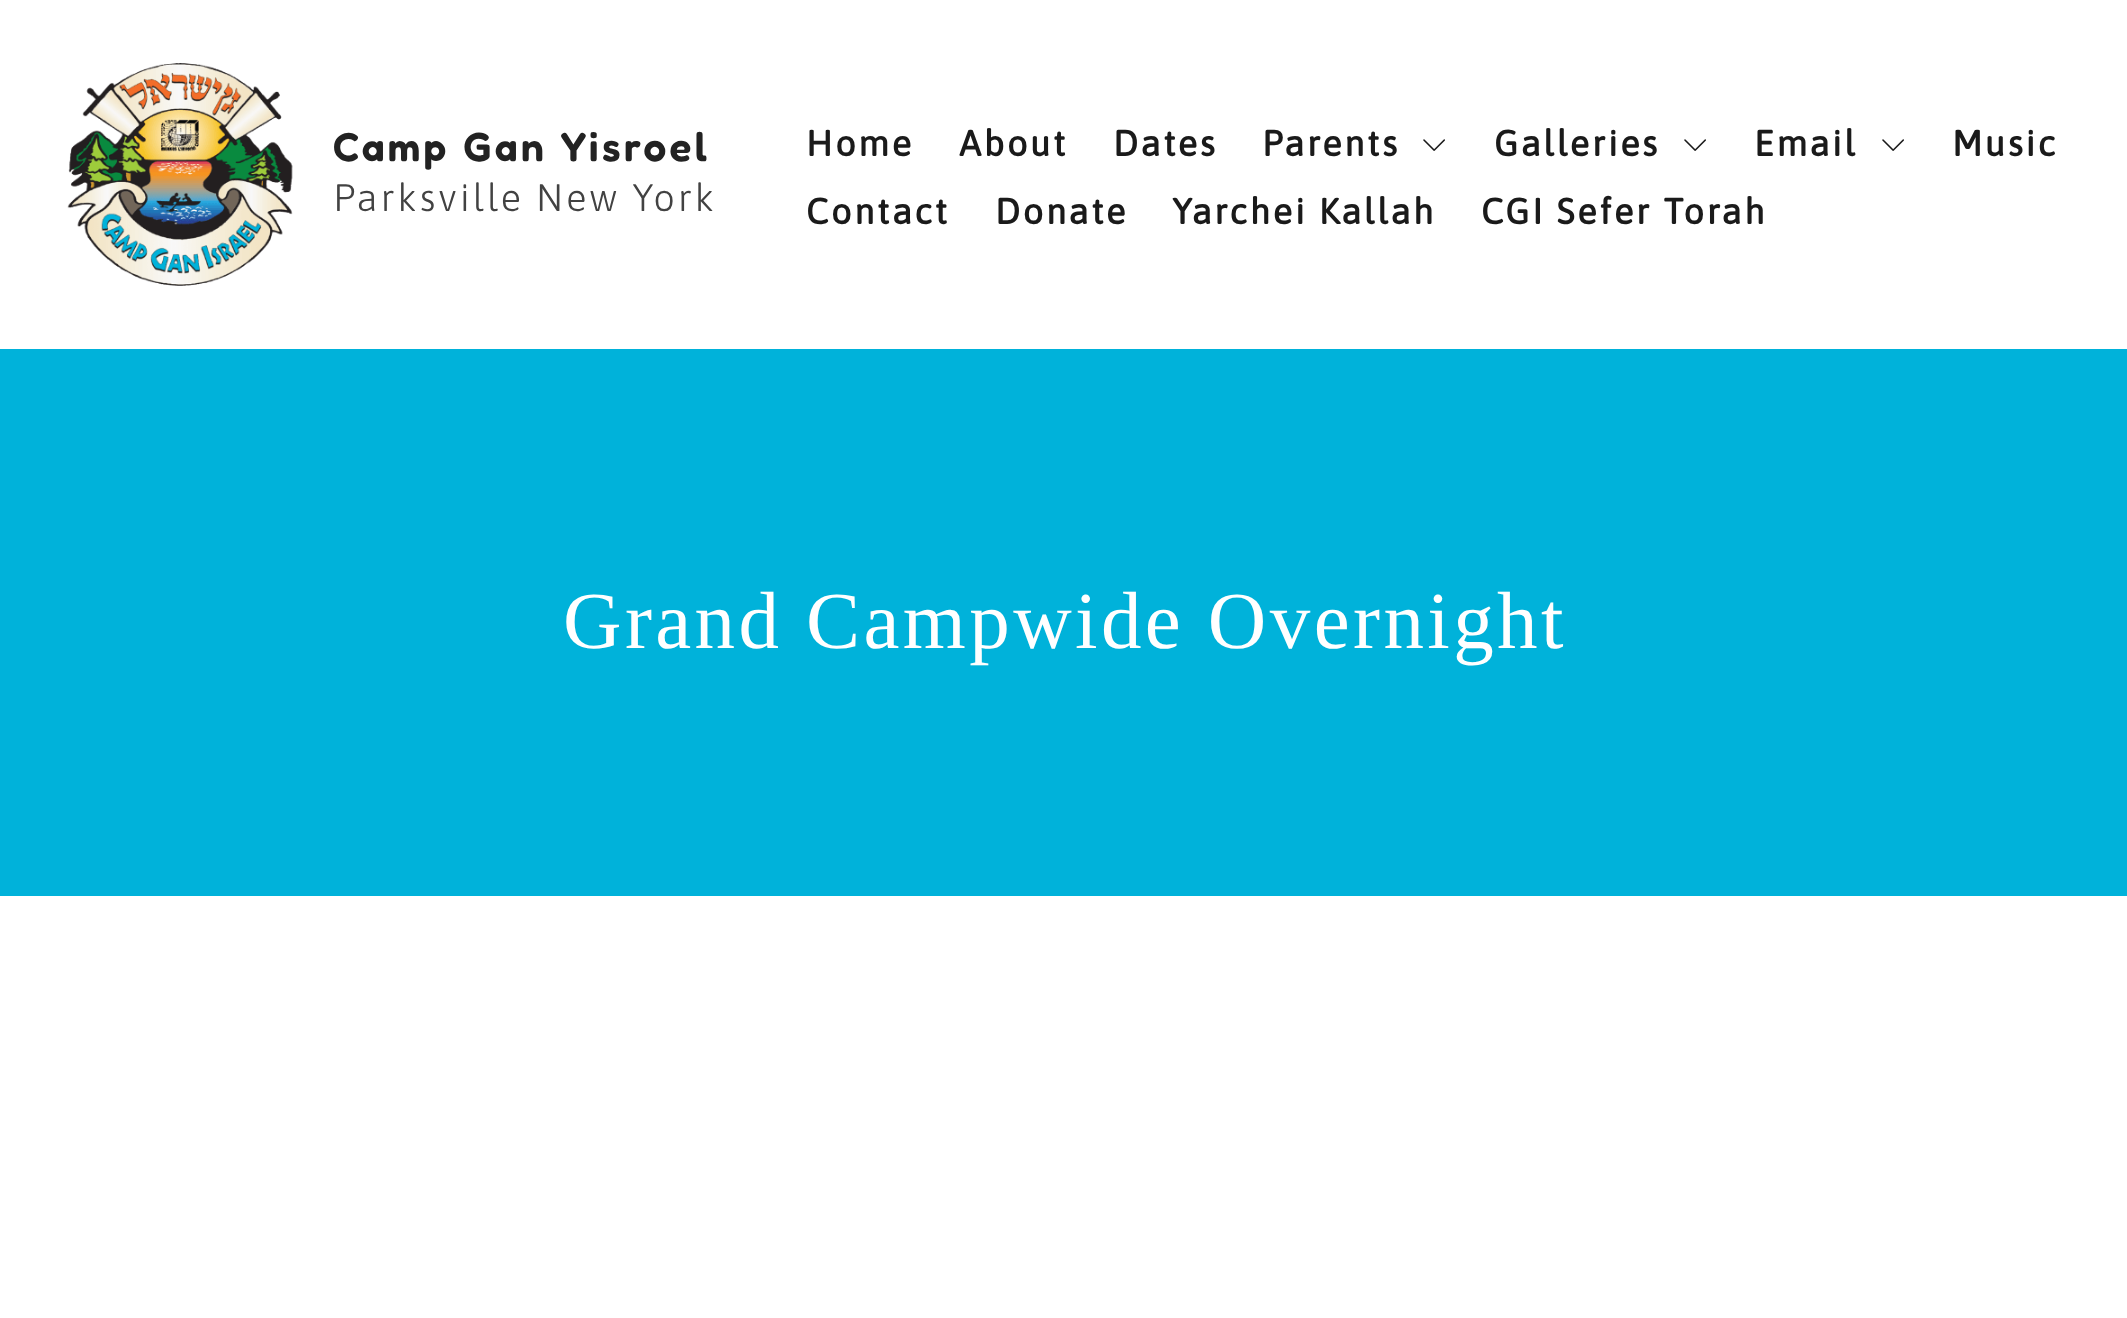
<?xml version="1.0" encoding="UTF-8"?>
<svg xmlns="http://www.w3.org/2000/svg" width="2127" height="1318">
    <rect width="100%" height="100%" fill="#FFFFFF"/>
    <image x="67" y="63" width="226" height="223" href="img_01.png"/>
    <text x="333" y="161" font-family="Fredoka" font-size="40.5" font-weight="600" letter-spacing="3.4" fill="#222222">Camp Gan Yisroel</text>
    <text x="333" y="211" font-family="Asap" font-size="38.25" font-weight="300" letter-spacing="2.75" fill="#424242">Parksville New York</text>
    <text x="806" y="156" font-family="Asap" font-size="36" font-weight="700" letter-spacing="2.75" fill="#1A1A1A">Home</text>
    <text x="959" y="156" font-family="Asap" font-size="36" font-weight="700" letter-spacing="2.75" fill="#1A1A1A">About</text>
    <text x="1113" y="156" font-family="Asap" font-size="36" font-weight="700" letter-spacing="2.75" fill="#1A1A1A">Dates</text>
    <text x="1262" y="156" font-family="Asap" font-size="36" font-weight="700" letter-spacing="2.75" fill="#1A1A1A">Parents</text>
    <image x="1423" y="139" width="22" height="12" href="img_02.png"/>
    <text x="1494" y="156" font-family="Asap" font-size="36" font-weight="700" letter-spacing="2.75" fill="#1A1A1A">Galleries</text>
    <image x="1684" y="139" width="22" height="12" href="img_02.png"/>
    <text x="1754" y="156" font-family="Asap" font-size="36" font-weight="700" letter-spacing="2.75" fill="#1A1A1A">Email</text>
    <image x="1882" y="139" width="22" height="12" href="img_02.png"/>
    <text x="1952" y="156" font-family="Asap" font-size="36" font-weight="700" letter-spacing="2.75" fill="#1A1A1A">Music</text>
    <text x="806" y="224" font-family="Asap" font-size="36" font-weight="700" letter-spacing="2.75" fill="#1A1A1A">Contact</text>
    <text x="995" y="224" font-family="Asap" font-size="36" font-weight="700" letter-spacing="2.75" fill="#1A1A1A">Donate</text>
    <text x="1172" y="224" font-family="Asap" font-size="36" font-weight="700" letter-spacing="2.75" fill="#1A1A1A">Yarchei Kallah</text>
    <text x="1481" y="224" font-family="Asap" font-size="36" font-weight="700" letter-spacing="2.75" fill="#1A1A1A">CGI Sefer Torah</text>
    <rect x="0" y="349" width="2127" height="547" fill="#00B2DA"/>
    <text x="563" y="648" font-family="Liberation Serif" font-size="81" letter-spacing="3.4" fill="#FFFFFF">Grand Campwide Overnight</text>
</svg>
